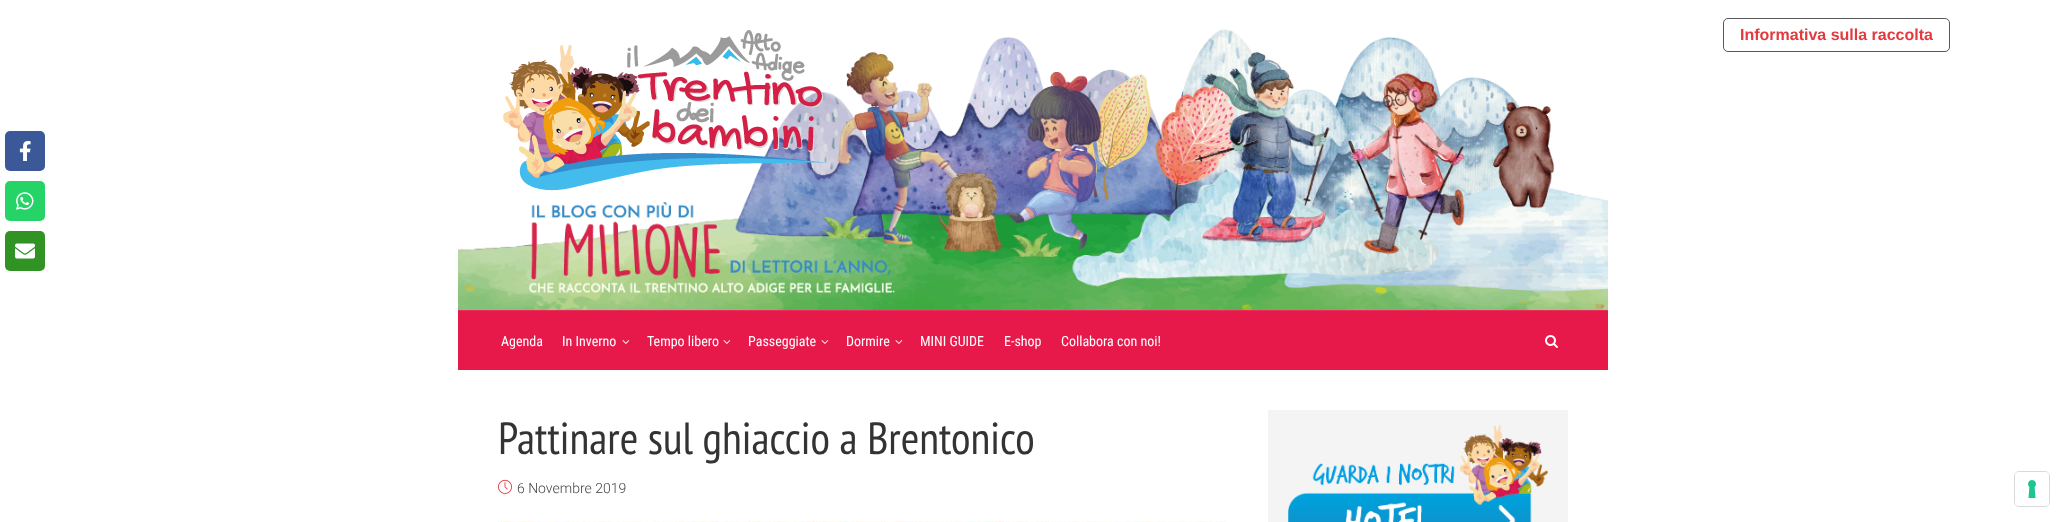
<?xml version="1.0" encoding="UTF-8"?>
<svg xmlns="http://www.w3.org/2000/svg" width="2065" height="522">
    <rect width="100%" height="100%" fill="#FFFFFF"/>
    <rect x="1723.5" y="18.5" width="226" height="33" rx="4.5" fill="none" stroke="#595959"/>
    <text x="1740" y="40" font-family="Liberation Sans" font-size="16" font-weight="700" fill="#E23A3E">Informativa sulla raccolta</text>
    <rect x="5" y="131" width="40" height="40" rx="5" fill="#3B5998"/>
    <image x="19" y="141" width="12" height="20" href="img_01.png"/>
    <rect x="5" y="181" width="40" height="40" rx="5" fill="#25D366"/>
    <image x="16" y="192" width="18" height="18" href="img_02.png"/>
    <rect x="5" y="231" width="40" height="40" rx="5" fill="#319324"/>
    <image x="15" y="243" width="20" height="16" href="img_03.png"/>
    <image x="458" y="29" width="1150" height="281" href="img_04.png"/>
    <image x="503" y="30" width="337" height="161" href="img_05.png"/>
    <rect x="458" y="311" width="1150" height="59" fill="#E6194A"/>
    <rect x="458" y="310" width="1150" height="1" fill="#E9305C"/>
    <text x="501" y="346" font-family="Roboto Condensed" font-size="14" fill="#FFFFFF">Agenda</text>
    <text x="562" y="346" font-family="Roboto Condensed" font-size="14" fill="#FFFFFF">In Inverno</text>
    <image x="622" y="340" width="8" height="4" href="img_06.png"/>
    <text x="647" y="346" font-family="Roboto Condensed" font-size="14" fill="#FFFFFF">Tempo libero</text>
    <image x="723" y="340" width="8" height="4" href="img_06.png"/>
    <text x="748" y="346" font-family="Roboto Condensed" font-size="14" fill="#FFFFFF">Passeggiate</text>
    <image x="821" y="340" width="8" height="4" href="img_06.png"/>
    <text x="846" y="346" font-family="Roboto Condensed" font-size="14" fill="#FFFFFF">Dormire</text>
    <image x="895" y="340" width="8" height="4" href="img_06.png"/>
    <text x="920" y="346" font-family="Roboto Condensed" font-size="14" fill="#FFFFFF">MINI GUIDE</text>
    <text x="1004" y="346" font-family="Roboto Condensed" font-size="14" fill="#FFFFFF">E-shop</text>
    <text x="1061" y="346" font-family="Roboto Condensed" font-size="14" fill="#FFFFFF">Collabora con noi!</text>
    <image x="1545" y="335" width="13" height="13" href="img_07.png"/>
    <text x="498" y="454" font-family="PT Sans Narrow" font-size="45" fill="#333333">Pattinare sul ghiaccio a Brentonico</text>
    <image x="498" y="479" width="14" height="15" href="img_08.png"/>
    <text x="517" y="493" font-family="Roboto" font-size="14" font-weight="300" fill="#444444">6 Novembre 2019</text>
    <image x="498" y="521" width="729" height="1" href="img_09.png"/>
    <rect x="1268" y="410" width="300" height="112" fill="#F4F4F4"/>
    <image x="1288" y="425" width="260" height="97" href="img_10.png"/>
    <rect x="2014.5" y="471.5" width="35" height="35" rx="4.5" fill="none" stroke="#D9D9D9"/>
    <rect x="2015" y="472" width="34" height="34" rx="4" fill="#FFFFFF"/>
    <image x="2028" y="480" width="8" height="18" href="img_11.png"/>
</svg>
